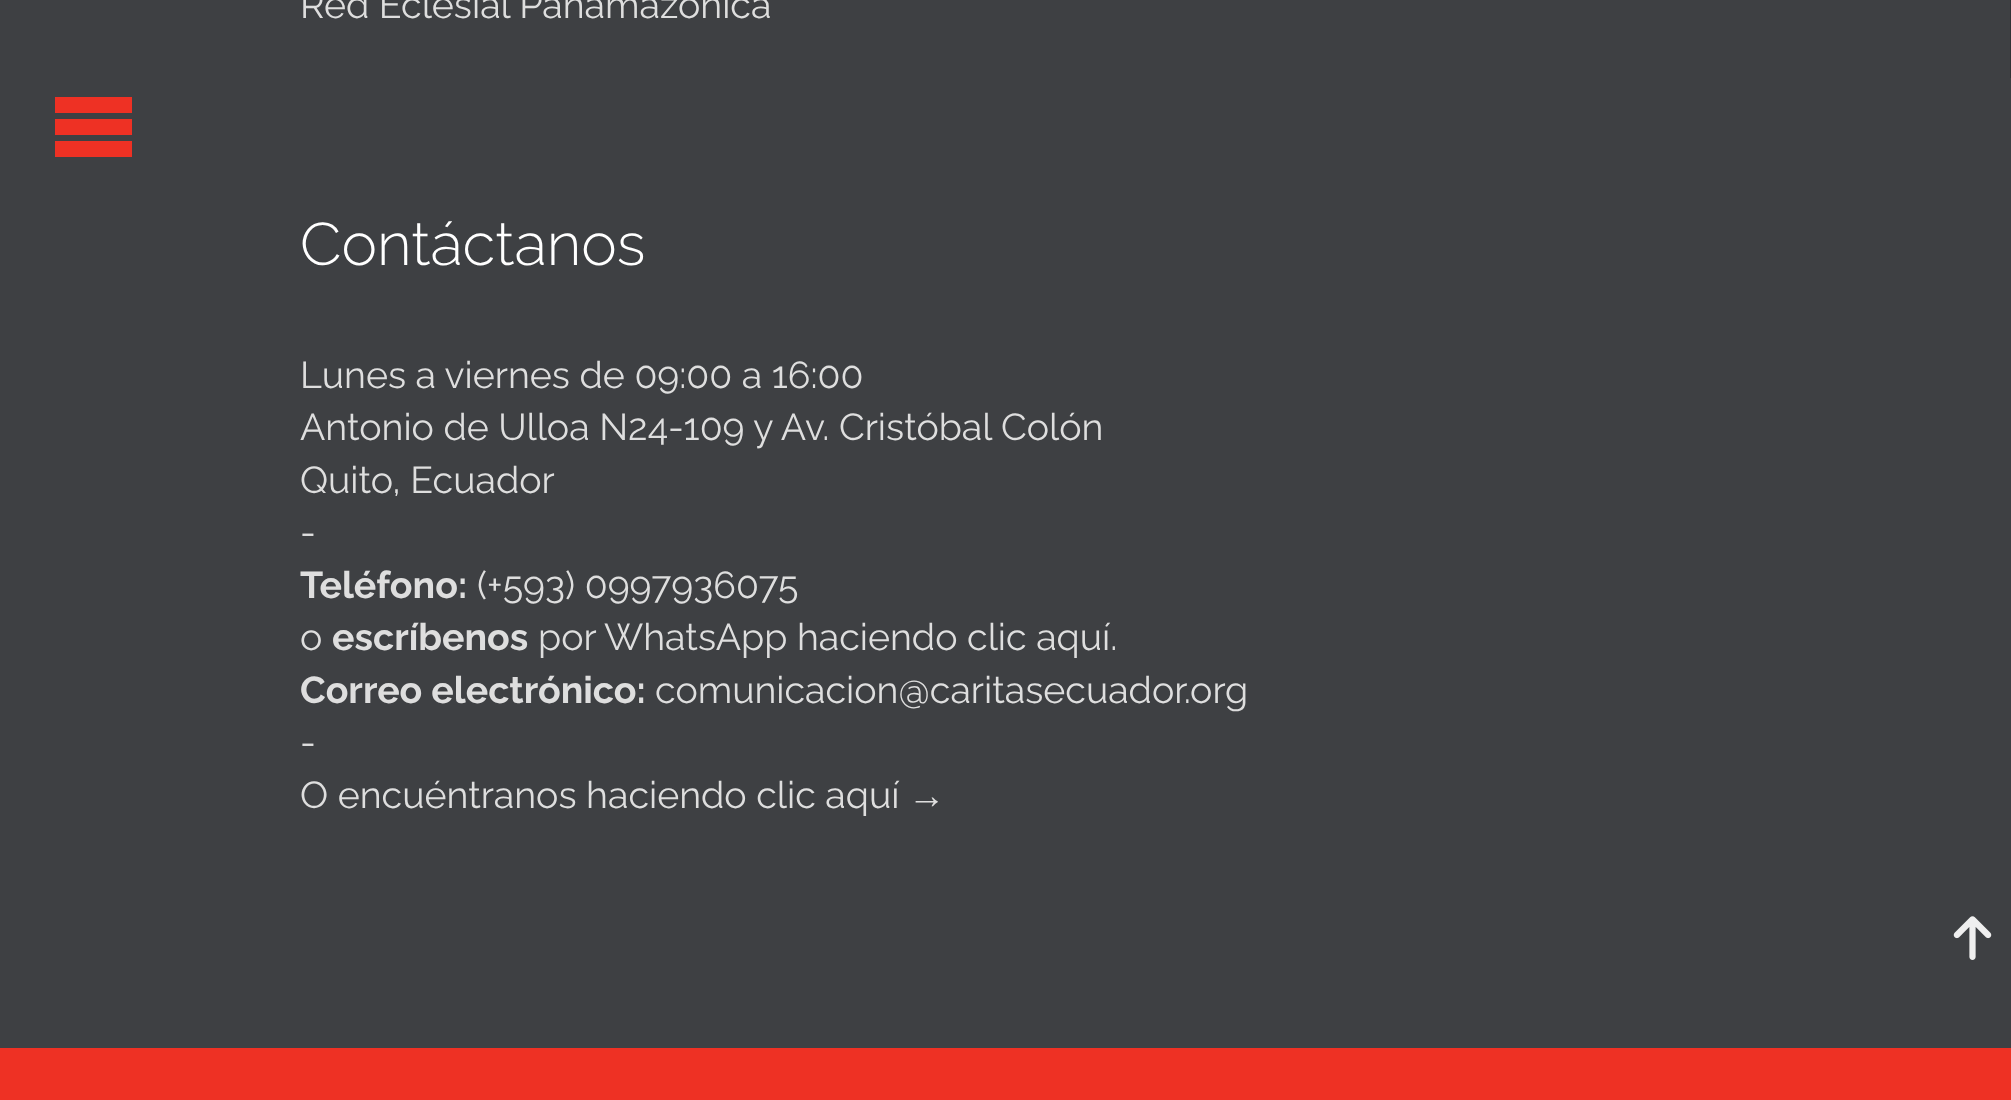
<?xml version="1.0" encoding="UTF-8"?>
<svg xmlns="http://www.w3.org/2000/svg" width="2011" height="1100">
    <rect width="100%" height="100%" fill="#3E4043"/>
    <path d="M 55 97 H 132 V 113 H 55 Z M 55 119 H 132 V 135 H 55 Z M 55 141 H 132 V 157 H 55 Z" fill="#EE3124"/>
    <rect x="2010" y="0" width="1" height="78" fill="#323336"/>
    <text x="300" y="18" font-family="Raleway" font-size="37.5" fill="#DEDEDE">Red Eclesial Panamazónica</text>
    <text x="300" y="265" font-family="Raleway" font-size="60" font-weight="300" fill="#FFFFFF">Contáctanos</text>
    <text font-family="Raleway" font-size="37.5" fill="#DEDEDE">
        <tspan x="300" y="388">Lunes a viernes de 09:00 a 16:00</tspan>
        <tspan x="300" y="440">Antonio de Ulloa N24-109 y Av. Cristóbal Colón</tspan>
        <tspan x="300" y="493">Quito, Ecuador</tspan>
        <tspan x="300" y="545">-</tspan>
    </text>
    <text x="300" y="598" font-family="Raleway" font-size="37.5" font-weight="700" fill="#DEDEDE">Teléfono:</text>
    <text x="477" y="598" font-family="Raleway" font-size="37.5" fill="#DEDEDE">(+593) 0997936075</text>
    <text x="300" y="650" font-family="Raleway" font-size="37.5" fill="#DEDEDE">o</text>
    <text x="332" y="650" font-family="Raleway" font-size="37.5" font-weight="700" fill="#DEDEDE">escríbenos</text>
    <text x="538" y="650" font-family="Raleway" font-size="37.5" fill="#DEDEDE">por WhatsApp haciendo clic aquí.</text>
    <text x="300" y="703" font-family="Raleway" font-size="37.5" font-weight="700" fill="#DEDEDE">Correo electrónico:</text>
    <text x="655" y="703" font-family="Raleway" font-size="37.5" fill="#DEDEDE">comunicacion@caritasecuador.org</text>
    <text font-family="Raleway" font-size="37.5" fill="#DEDEDE">
        <tspan x="300" y="755">-</tspan>
        <tspan x="300" y="808">O encuéntranos haciendo clic aquí</tspan>
    </text>
    <text x="908" y="808" font-family="Liberation Serif" font-size="37.5" font-weight="700" fill="#DEDEDE">→</text>
    <rect x="0" y="1048" width="2011" height="52" fill="#EE3124"/>
    <image x="1953" y="916" width="39" height="44" href="img_01.png"/>
</svg>
